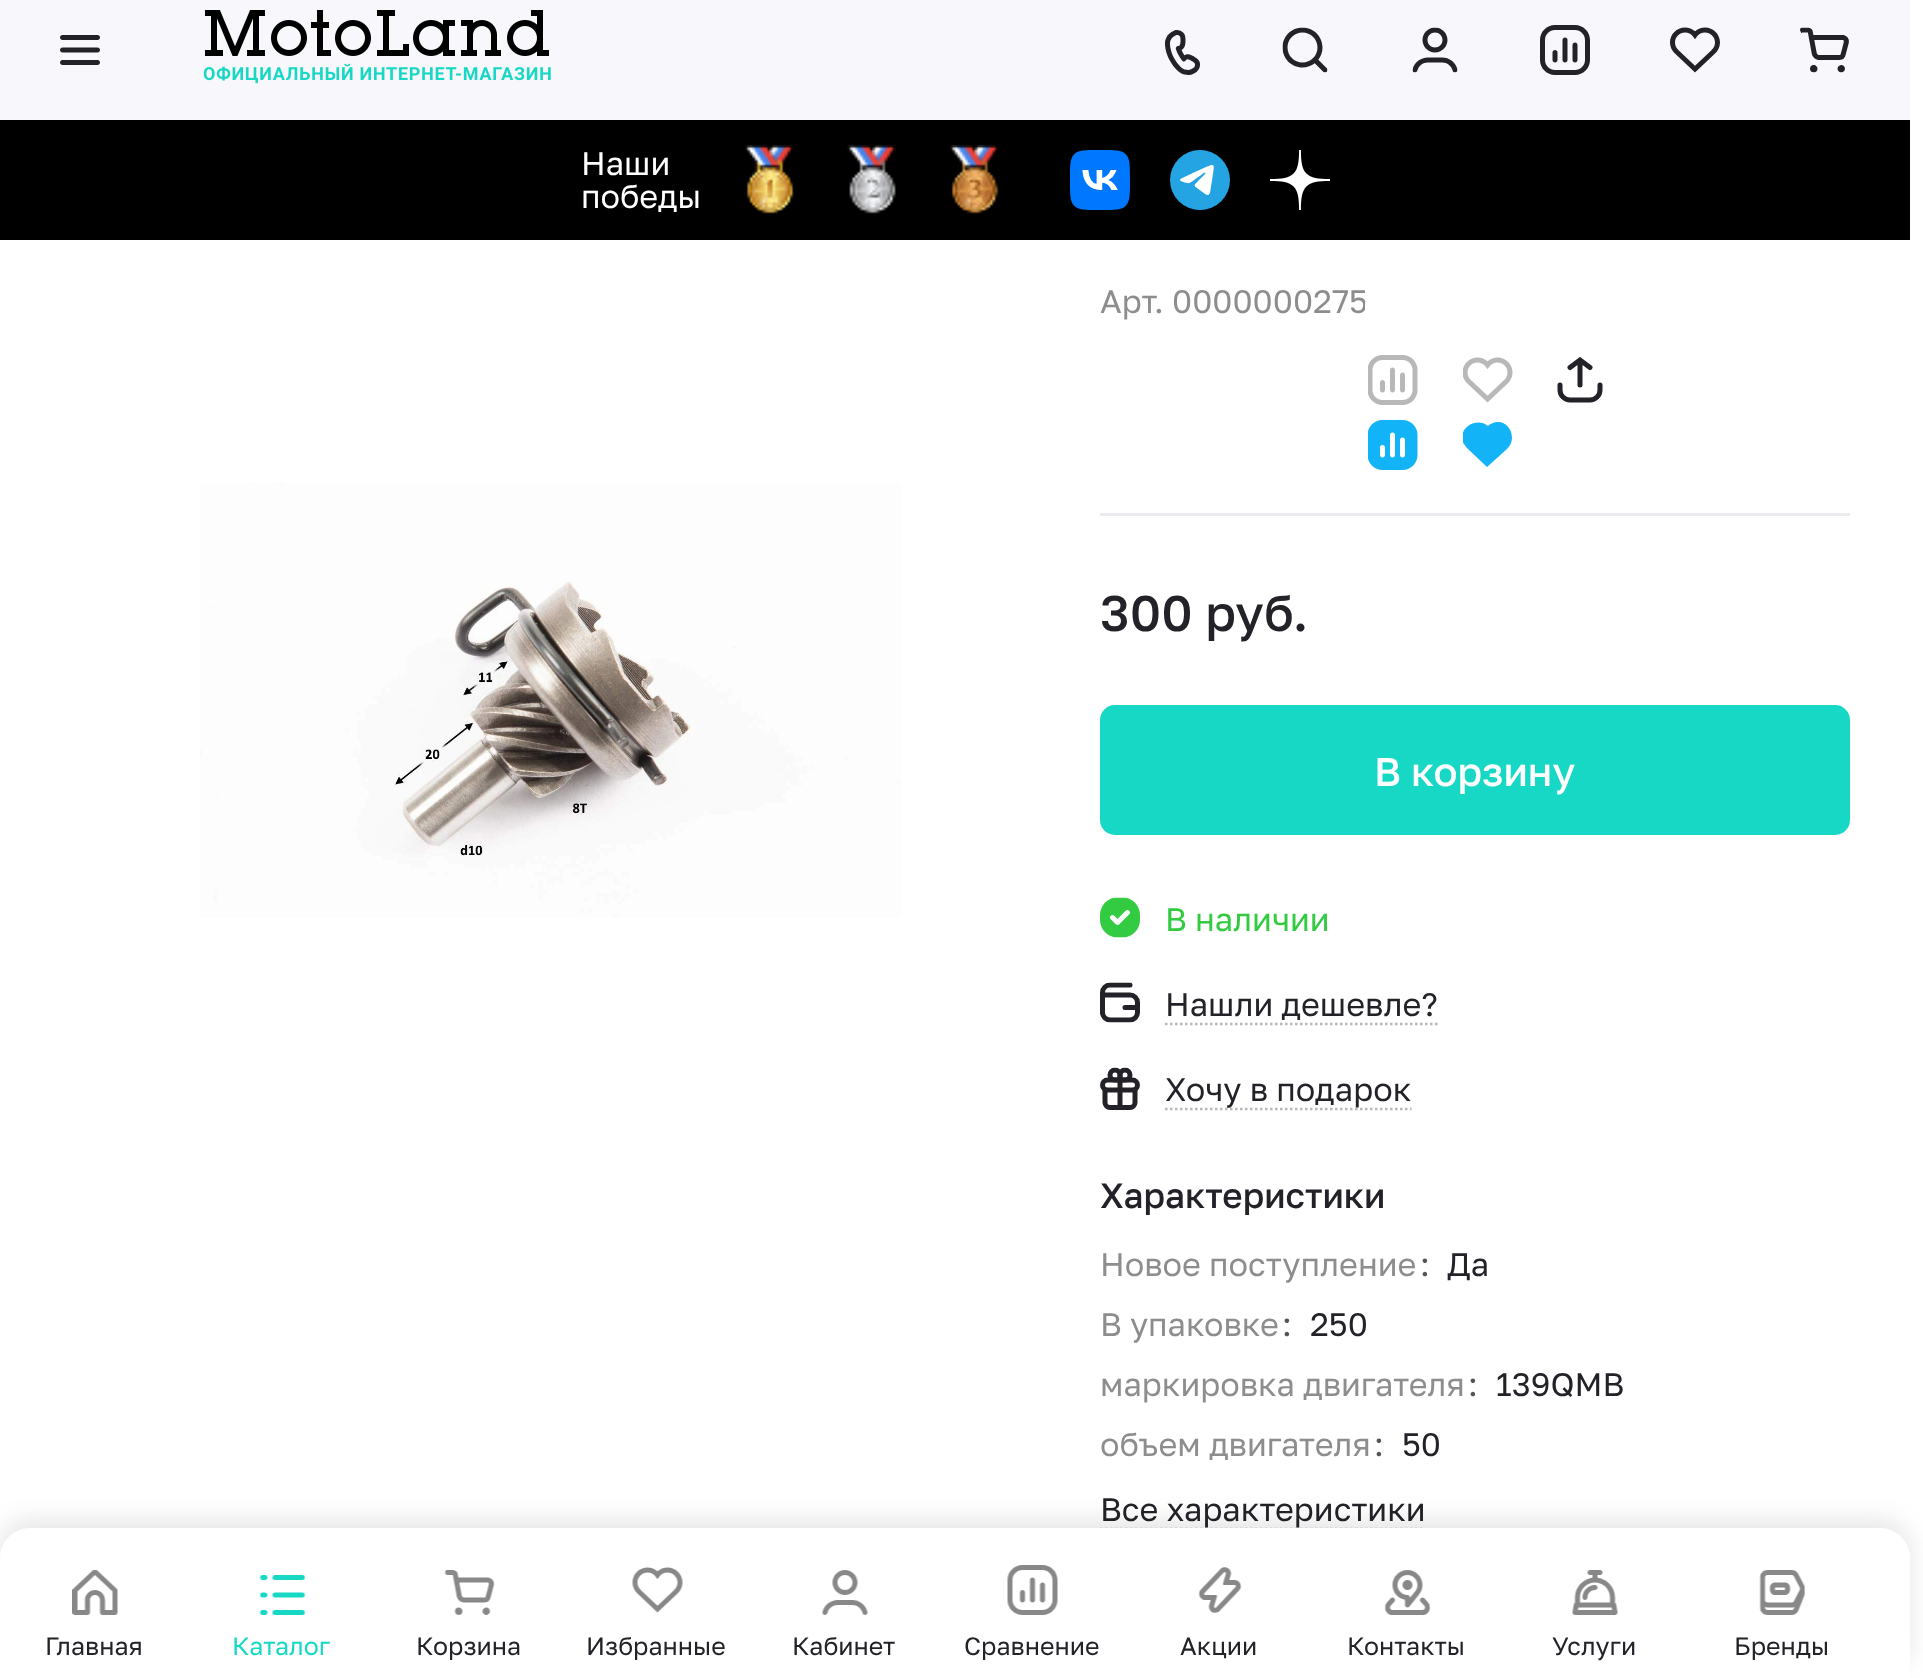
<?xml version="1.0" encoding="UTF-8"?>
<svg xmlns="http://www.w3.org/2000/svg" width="1923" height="1678">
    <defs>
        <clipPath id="clip1"><rect x="1463" y="420" width="50" height="50"/></clipPath>
        <filter id="blur1" x="-50%" y="-200%" width="200%" height="500%"><feGaussianBlur stdDeviation="12.5"/></filter>
    </defs>
    <rect width="100%" height="100%" fill="#FFFFFF"/>
    <rect x="0" y="0" width="1910" height="120" fill="#F8F8FC"/>
    <image x="60" y="35" width="40" height="30" href="img_01.png"/>
    <image x="203" y="10" width="348" height="74" href="img_02.png"/>
    <image x="1165" y="30" width="35" height="45" href="img_03.png"/>
    <image x="1282" y="27" width="46" height="46" href="img_04.png"/>
    <image x="1412" y="27" width="46" height="46" href="img_05.png"/>
    <image x="1540" y="25" width="50" height="50" href="img_06.png"/>
    <image x="1670" y="27" width="50" height="46" href="img_07.png"/>
    <image x="1800" y="27" width="49" height="46" href="img_08.png"/>
    <rect x="0" y="120" width="1910" height="120" fill="#000000"/>
    <text font-family="Golos Text" font-size="32.5" fill="#FFFFFF">
        <tspan x="581" y="175">Наши</tspan>
        <tspan x="581" y="208">победы</tspan>
    </text>
    <image x="745" y="145" width="49" height="69" href="img_09.png"/>
    <image x="847" y="145" width="49" height="69" href="img_10.png"/>
    <image x="950" y="145" width="49" height="69" href="img_11.png"/>
    <image x="1070" y="150" width="60" height="60" href="img_12.png"/>
    <image x="1170" y="150" width="60" height="60" href="img_13.png"/>
    <image x="1270" y="150" width="60" height="60" href="img_14.png"/>
    <image x="200" y="483" width="701" height="435" href="img_15.png"/>
    <text x="1100" y="313" font-family="Golos Text" font-size="32.5" fill="#8D8D8D">Арт. 0000000275</text>
    <path d="M 1402 342 H 1382 C 1373 342 1365 335 1365 325 V 305 C 1365 295 1373 288 1382 288 H 1402 C 1412 288 1420 295 1420 305 V 325 C 1420 335 1412 342 1402 342 Z" fill="#FFFFFF"/>
    <image x="1368" y="355" width="50" height="50" href="img_16.png"/>
    <image x="1368" y="420" width="50" height="50" href="img_17.png"/>
    <image x="1463" y="357" width="50" height="46" href="img_18.png"/>
    <g clip-path="url(#clip1)">
        <path d="M 1462 438 C 1462 425 1478 418 1488 426 C 1490 424 1494 422 1498 422 C 1506 422 1512 429 1512 438 C 1512 442 1510 446 1507 449 L 1487 467 L 1468 449 C 1465 446 1462 442 1462 438 Z" fill="#13B3F8" fill-rule="evenodd"/>
    </g>
    <image x="1557" y="357" width="46" height="46" href="img_19.png"/>
    <rect x="1100" y="513" width="750" height="3" fill="#EBECEF"/>
    <text x="1100" y="631" font-family="Golos Text" font-size="50" font-weight="500" fill="#222228">300 руб.</text>
    <rect x="1101.5" y="706.5" width="747" height="127" rx="13.5" fill="#17D8C4" stroke="#17D8C4" stroke-width="3"/>
    <text x="1374" y="786" font-family="Golos Text" font-size="40" font-weight="500" fill="#FFFFFF">В корзину</text>
    <image x="1100" y="897" width="40" height="41" href="img_20.png"/>
    <text x="1165" y="931" font-family="Golos Text" font-size="32.5" fill="#32CB41">В наличии</text>
    <image x="1100" y="982" width="40" height="41" href="img_21.png"/>
    <text x="1165" y="1016" font-family="Golos Text" font-size="32.5" fill="#222228">Нашли дешевле?</text>
    <path d="M 1165 1024 H 1438" fill="none" stroke="#B8B8BA" stroke-width="2.5" stroke-dasharray="2.5 2.5"/>
    <image x="1100" y="1067" width="40" height="43" href="img_22.png"/>
    <path d="M 1165 1109 H 1411.5" fill="none" stroke="#B8B8BA" stroke-width="2.5" stroke-dasharray="2.5 2.5"/>
    <text x="1165" y="1101" font-family="Golos Text" font-size="32.5" fill="#222228">Хочу в подарок</text>
    <text x="1100" y="1208" font-family="Golos Text" font-size="35" font-weight="500" fill="#222228">Характеристики</text>
    <text x="1100" y="1276" font-family="Golos Text" font-size="32.5" fill="#8D8D8D">Новое поступление</text>
    <text x="1420" y="1276" font-family="Golos Text" font-size="32.5" fill="#555558">:</text>
    <text x="1447" y="1276" font-family="Golos Text" font-size="32.5" fill="#222228">Да</text>
    <text x="1100" y="1336" font-family="Golos Text" font-size="32.5" fill="#8D8D8D">В упаковке</text>
    <text x="1282" y="1336" font-family="Golos Text" font-size="32.5" fill="#555558">:</text>
    <text x="1310" y="1336" font-family="Golos Text" font-size="32.5" fill="#222228">250</text>
    <text x="1100" y="1396" font-family="Golos Text" font-size="32.5" fill="#8D8D8D">маркировка двигателя</text>
    <text x="1468" y="1396" font-family="Golos Text" font-size="32.5" fill="#555558">:</text>
    <text x="1496" y="1396" font-family="Golos Text" font-size="32.5" fill="#222228">139QMB</text>
    <text x="1100" y="1456" font-family="Golos Text" font-size="32.5" fill="#8D8D8D">объем двигателя</text>
    <text x="1374" y="1456" font-family="Golos Text" font-size="32.5" fill="#555558">:</text>
    <text x="1402" y="1456" font-family="Golos Text" font-size="32.5" fill="#222228">50</text>
    <path d="M 1100 1529 H 1425.5" fill="none" stroke="#B8B8BA" stroke-width="2.5" stroke-dasharray="2.5 2.5"/>
    <text x="1100" y="1521" font-family="Golos Text" font-size="32.5" fill="#222228">Все характеристики</text>
    <rect x="0" y="1520" width="1910" height="153" rx="30" fill="#000000" fill-opacity="0.1" filter="url(#blur1)"/>
    <path d="M 30 1528 H 1880 C 1896.5 1528 1910 1541.5 1910 1558 V 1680 H 0 V 1558 C 0 1541.5 13.5 1528 30 1528 Z" fill="#FFFFFF"/>
    <image x="72" y="1570" width="46" height="45" href="img_23.png"/>
    <text x="45" y="1655" font-family="Golos Text" font-size="25" fill="#222228">Главная</text>
    <image x="259" y="1575" width="47" height="40" href="img_24.png"/>
    <text x="232" y="1655" font-family="Golos Text" font-size="25" fill="#17D8C4">Каталог</text>
    <image x="444" y="1570" width="51" height="45" href="img_25.png"/>
    <text x="416" y="1655" font-family="Golos Text" font-size="25" fill="#222228">Корзина</text>
    <image x="632" y="1567" width="51" height="46" href="img_26.png"/>
    <text x="586" y="1655" font-family="Golos Text" font-size="25" fill="#222228">Избранные</text>
    <image x="822" y="1570" width="46" height="45" href="img_27.png"/>
    <text x="792" y="1655" font-family="Golos Text" font-size="25" fill="#222228">Кабинет</text>
    <image x="1007" y="1565" width="51" height="50" href="img_28.png"/>
    <text x="964" y="1655" font-family="Golos Text" font-size="25" fill="#222228">Сравнение</text>
    <image x="1198" y="1567" width="44" height="46" href="img_29.png"/>
    <text x="1180" y="1655" font-family="Golos Text" font-size="25" fill="#222228">Акции</text>
    <image x="1384" y="1570" width="47" height="45" href="img_30.png"/>
    <text x="1347" y="1655" font-family="Golos Text" font-size="25" fill="#222228">Контакты</text>
    <image x="1572" y="1570" width="46" height="45" href="img_31.png"/>
    <text x="1552" y="1655" font-family="Golos Text" font-size="25" fill="#222228">Услуги</text>
    <image x="1759" y="1570" width="46" height="45" href="img_32.png"/>
    <text x="1734" y="1655" font-family="Golos Text" font-size="25" fill="#222228">Бренды</text>
</svg>
